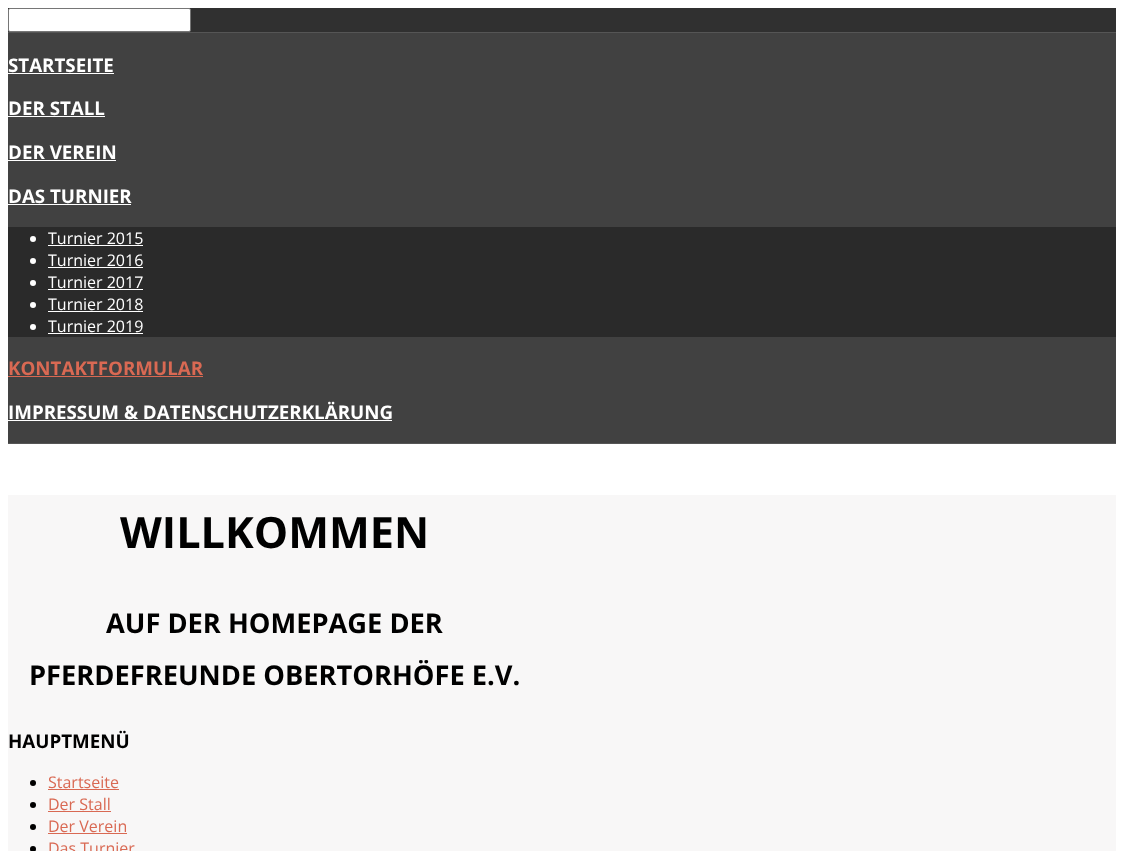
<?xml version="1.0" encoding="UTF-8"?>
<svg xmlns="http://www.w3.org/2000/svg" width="1124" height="851">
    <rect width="100%" height="100%" fill="#FFFFFF"/>
    <rect x="8" y="33" width="1108" height="410" fill="#414141"/>
    <rect x="8" y="32" width="1108" height="1" fill="#555555"/>
    <rect x="8" y="8" width="1108" height="24" fill="#303030"/>
    <rect x="8.5" y="8.5" width="182" height="23" rx="1.5" fill="#FFFFFF" stroke="#767676"/>
    <rect x="8" y="443" width="1108" height="1" fill="#555555"/>
    <text x="8" y="72" font-family="Open Sans" font-size="18.75" font-weight="700" fill="#FFFFFF">STARTSEITE</text>
    <rect x="8" y="73" width="106" height="1" fill="#FFFFFF"/>
    <text x="8" y="115" font-family="Open Sans" font-size="18.75" font-weight="700" fill="#FFFFFF">DER STALL</text>
    <rect x="8" y="116" width="97" height="1" fill="#FFFFFF"/>
    <text x="8" y="159" font-family="Open Sans" font-size="18.75" font-weight="700" fill="#FFFFFF">DER VEREIN</text>
    <rect x="8" y="160" width="108" height="1" fill="#FFFFFF"/>
    <text x="8" y="203" font-family="Open Sans" font-size="18.75" font-weight="700" fill="#FFFFFF">DAS TURNIER</text>
    <rect x="8" y="204" width="123" height="1" fill="#FFFFFF"/>
    <rect x="8" y="227" width="1108" height="110" fill="#2A2A2A"/>
    <circle cx="33" cy="239" r="3" fill="#FFFFFF"/>
    <text x="48" y="244" font-family="Open Sans" font-size="16" fill="#FFFFFF">Turnier 2015</text>
    <rect x="48" y="245" width="95" height="1" fill="#FFFFFF"/>
    <circle cx="33" cy="261" r="3" fill="#FFFFFF"/>
    <text x="48" y="266" font-family="Open Sans" font-size="16" fill="#FFFFFF">Turnier 2016</text>
    <rect x="48" y="267" width="95" height="1" fill="#FFFFFF"/>
    <circle cx="33" cy="283" r="3" fill="#FFFFFF"/>
    <text x="48" y="288" font-family="Open Sans" font-size="16" fill="#FFFFFF">Turnier 2017</text>
    <rect x="48" y="289" width="95" height="1" fill="#FFFFFF"/>
    <circle cx="33" cy="305" r="3" fill="#FFFFFF"/>
    <text x="48" y="310" font-family="Open Sans" font-size="16" fill="#FFFFFF">Turnier 2018</text>
    <rect x="48" y="311" width="95" height="1" fill="#FFFFFF"/>
    <circle cx="33" cy="327" r="3" fill="#FFFFFF"/>
    <text x="48" y="332" font-family="Open Sans" font-size="16" fill="#FFFFFF">Turnier 2019</text>
    <rect x="48" y="333" width="95" height="1" fill="#FFFFFF"/>
    <text x="8" y="375" font-family="Open Sans" font-size="18.75" font-weight="700" fill="#D96953">KONTAKTFORMULAR</text>
    <rect x="8" y="376" width="195" height="1" fill="#D96953"/>
    <text x="8" y="419" font-family="Open Sans" font-size="18.75" font-weight="700" fill="#FFFFFF">IMPRESSUM &amp; DATENSCHUTZERKLÄRUNG</text>
    <rect x="8" y="420" width="384" height="1" fill="#FFFFFF"/>
    <rect x="8" y="495" width="1108" height="356" fill="#F8F7F7"/>
    <text x="120" y="548" font-family="Open Sans" font-size="43.25" font-weight="700" fill="#000000">WILLKOMMEN</text>
    <text x="106" y="633" font-family="Open Sans" font-size="27.25" font-weight="700" fill="#000000">AUF DER HOMEPAGE DER</text>
    <text x="29" y="685" font-family="Open Sans" font-size="27.25" font-weight="700" fill="#000000">PFERDEFREUNDE OBERTORHÖFE E.V.</text>
    <text x="8" y="748" font-family="Open Sans" font-size="18.75" font-weight="700" fill="#000000">HAUPTMENÜ</text>
    <circle cx="33" cy="783" r="3" fill="#000000"/>
    <text x="48" y="788" font-family="Open Sans" font-size="16" fill="#D96953">Startseite</text>
    <rect x="48" y="789" width="71" height="1" fill="#D96953"/>
    <circle cx="33" cy="805" r="3" fill="#000000"/>
    <text x="48" y="810" font-family="Open Sans" font-size="16" fill="#D96953">Der Stall</text>
    <rect x="48" y="811" width="63" height="1" fill="#D96953"/>
    <circle cx="33" cy="827" r="3" fill="#000000"/>
    <text x="48" y="832" font-family="Open Sans" font-size="16" fill="#D96953">Der Verein</text>
    <rect x="48" y="833" width="79" height="1" fill="#D96953"/>
    <circle cx="33" cy="849" r="3" fill="#000000"/>
    <text x="48" y="854" font-family="Open Sans" font-size="16" fill="#D96953">Das Turnier</text>
</svg>
